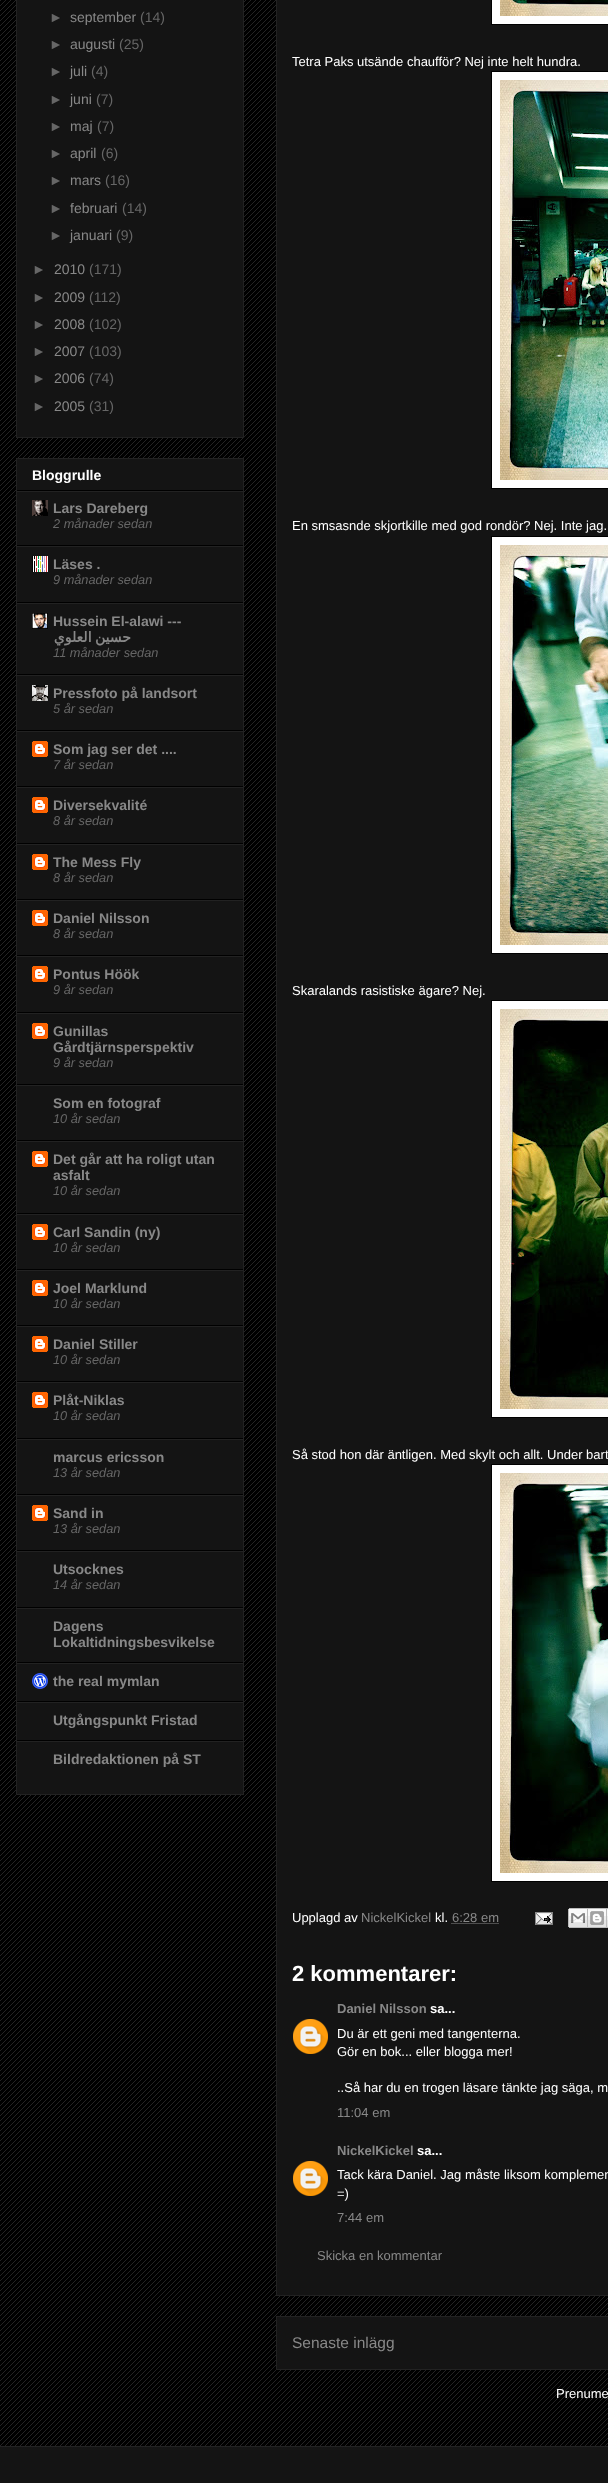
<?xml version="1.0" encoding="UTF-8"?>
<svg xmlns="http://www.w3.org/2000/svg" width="608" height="2483">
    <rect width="100%" height="100%" fill="#000000"/>
    <image x="0" y="0" width="608" height="2446" href="img_01.png"/>
    <rect x="16.5" y="-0.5" width="227" height="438" fill="#141414" stroke="#222222"/>
    <text x="49" y="22" font-family="Liberation Sans" font-size="14" fill="#666666">►</text>
    <text x="70" y="22" font-family="Liberation Sans" font-size="14" fill="#888888">september</text>
    <text x="140" y="22" font-family="Liberation Sans" font-size="14" fill="#666666">(14)</text>
    <text x="49" y="49" font-family="Liberation Sans" font-size="14" fill="#666666">►</text>
    <text x="70" y="49" font-family="Liberation Sans" font-size="14" fill="#888888">augusti</text>
    <text x="119" y="49" font-family="Liberation Sans" font-size="14" fill="#666666">(25)</text>
    <text x="49" y="76" font-family="Liberation Sans" font-size="14" fill="#666666">►</text>
    <text x="70" y="76" font-family="Liberation Sans" font-size="14" fill="#888888">juli</text>
    <text x="91" y="76" font-family="Liberation Sans" font-size="14" fill="#666666">(4)</text>
    <text x="49" y="104" font-family="Liberation Sans" font-size="14" fill="#666666">►</text>
    <text x="70" y="104" font-family="Liberation Sans" font-size="14" fill="#888888">juni</text>
    <text x="96" y="104" font-family="Liberation Sans" font-size="14" fill="#666666">(7)</text>
    <text x="49" y="131" font-family="Liberation Sans" font-size="14" fill="#666666">►</text>
    <text x="70" y="131" font-family="Liberation Sans" font-size="14" fill="#888888">maj</text>
    <text x="97" y="131" font-family="Liberation Sans" font-size="14" fill="#666666">(7)</text>
    <text x="49" y="158" font-family="Liberation Sans" font-size="14" fill="#666666">►</text>
    <text x="70" y="158" font-family="Liberation Sans" font-size="14" fill="#888888">april</text>
    <text x="101" y="158" font-family="Liberation Sans" font-size="14" fill="#666666">(6)</text>
    <text x="49" y="185" font-family="Liberation Sans" font-size="14" fill="#666666">►</text>
    <text x="70" y="185" font-family="Liberation Sans" font-size="14" fill="#888888">mars</text>
    <text x="105" y="185" font-family="Liberation Sans" font-size="14" fill="#666666">(16)</text>
    <text x="49" y="213" font-family="Liberation Sans" font-size="14" fill="#666666">►</text>
    <text x="70" y="213" font-family="Liberation Sans" font-size="14" fill="#888888">februari</text>
    <text x="122" y="213" font-family="Liberation Sans" font-size="14" fill="#666666">(14)</text>
    <text x="49" y="240" font-family="Liberation Sans" font-size="14" fill="#666666">►</text>
    <text x="70" y="240" font-family="Liberation Sans" font-size="14" fill="#888888">januari</text>
    <text x="116" y="240" font-family="Liberation Sans" font-size="14" fill="#666666">(9)</text>
    <text x="32" y="274" font-family="Liberation Sans" font-size="14" fill="#666666">►</text>
    <text x="54" y="274" font-family="Liberation Sans" font-size="14" fill="#888888">2010</text>
    <text x="89" y="274" font-family="Liberation Sans" font-size="14" fill="#666666">(171)</text>
    <text x="32" y="302" font-family="Liberation Sans" font-size="14" fill="#666666">►</text>
    <text x="54" y="302" font-family="Liberation Sans" font-size="14" fill="#888888">2009</text>
    <text x="89" y="302" font-family="Liberation Sans" font-size="14" fill="#666666">(112)</text>
    <text x="32" y="329" font-family="Liberation Sans" font-size="14" fill="#666666">►</text>
    <text x="54" y="329" font-family="Liberation Sans" font-size="14" fill="#888888">2008</text>
    <text x="89" y="329" font-family="Liberation Sans" font-size="14" fill="#666666">(102)</text>
    <text x="32" y="356" font-family="Liberation Sans" font-size="14" fill="#666666">►</text>
    <text x="54" y="356" font-family="Liberation Sans" font-size="14" fill="#888888">2007</text>
    <text x="89" y="356" font-family="Liberation Sans" font-size="14" fill="#666666">(103)</text>
    <text x="32" y="383" font-family="Liberation Sans" font-size="14" fill="#666666">►</text>
    <text x="54" y="383" font-family="Liberation Sans" font-size="14" fill="#888888">2006</text>
    <text x="89" y="383" font-family="Liberation Sans" font-size="14" fill="#666666">(74)</text>
    <text x="32" y="411" font-family="Liberation Sans" font-size="14" fill="#666666">►</text>
    <text x="54" y="411" font-family="Liberation Sans" font-size="14" fill="#888888">2005</text>
    <text x="89" y="411" font-family="Liberation Sans" font-size="14" fill="#666666">(31)</text>
    <rect x="16.5" y="458.5" width="227" height="1336" fill="#141414" stroke="#222222"/>
    <rect x="17" y="490" width="226" height="1" fill="#000000"/>
    <text x="32" y="480" font-family="Liberation Sans" font-size="14" font-weight="700" fill="#FFFFFF">Bloggrulle</text>
    <rect x="17" y="491" width="226" height="1" fill="#222222"/>
    <rect x="17" y="545" width="226" height="1" fill="#000000"/>
    <image x="32" y="500" width="16" height="16" href="img_02.png"/>
    <text x="53" y="513" font-family="Liberation Sans" font-size="14" font-weight="700" fill="#888888">Lars Dareberg</text>
    <text x="53" y="528" font-family="Liberation Sans" font-size="12.75" font-style="italic" fill="#666666">2 månader sedan</text>
    <rect x="17" y="546" width="226" height="1" fill="#222222"/>
    <rect x="17" y="602" width="226" height="1" fill="#000000"/>
    <image x="32" y="556" width="16" height="16" href="img_03.png"/>
    <text x="53" y="569" font-family="Liberation Sans" font-size="14" font-weight="700" fill="#888888">Läses .</text>
    <text x="53" y="584" font-family="Liberation Sans" font-size="12.75" font-style="italic" fill="#666666">9 månader sedan</text>
    <rect x="17" y="603" width="226" height="1" fill="#222222"/>
    <rect x="17" y="674" width="226" height="1" fill="#000000"/>
    <image x="32" y="613" width="16" height="16" href="img_04.png"/>
    <text x="53" y="626" font-family="Liberation Sans" font-size="14" font-weight="700" fill="#888888">Hussein El-alawi ---</text>
    <text x="131" y="642" word-spacing="-1" font-family="DejaVu Sans" font-size="14" font-weight="700" direction="rtl" fill="#888888">حسين العلوي</text>
    <text x="53" y="657" font-family="Liberation Sans" font-size="12.75" font-style="italic" fill="#666666">11 månader sedan</text>
    <rect x="17" y="675" width="226" height="1" fill="#222222"/>
    <rect x="17" y="730" width="226" height="1" fill="#000000"/>
    <image x="32" y="685" width="16" height="16" href="img_05.png"/>
    <text x="53" y="698" font-family="Liberation Sans" font-size="14" font-weight="700" fill="#888888">Pressfoto på landsort</text>
    <text x="53" y="713" font-family="Liberation Sans" font-size="12.75" font-style="italic" fill="#666666">5 år sedan</text>
    <rect x="17" y="731" width="226" height="1" fill="#222222"/>
    <rect x="17" y="786" width="226" height="1" fill="#000000"/>
    <image x="32" y="741" width="16" height="16" href="img_06.png"/>
    <text x="53" y="754" font-family="Liberation Sans" font-size="14" font-weight="700" fill="#888888">Som jag ser det ....</text>
    <text x="53" y="769" font-family="Liberation Sans" font-size="12.75" font-style="italic" fill="#666666">7 år sedan</text>
    <rect x="17" y="787" width="226" height="1" fill="#222222"/>
    <rect x="17" y="843" width="226" height="1" fill="#000000"/>
    <image x="32" y="797" width="16" height="16" href="img_06.png"/>
    <text x="53" y="810" font-family="Liberation Sans" font-size="14" font-weight="700" fill="#888888">Diversekvalité</text>
    <text x="53" y="825" font-family="Liberation Sans" font-size="12.75" font-style="italic" fill="#666666">8 år sedan</text>
    <rect x="17" y="844" width="226" height="1" fill="#222222"/>
    <rect x="17" y="899" width="226" height="1" fill="#000000"/>
    <image x="32" y="854" width="16" height="16" href="img_06.png"/>
    <text x="53" y="867" font-family="Liberation Sans" font-size="14" font-weight="700" fill="#888888">The Mess Fly</text>
    <text x="53" y="882" font-family="Liberation Sans" font-size="12.75" font-style="italic" fill="#666666">8 år sedan</text>
    <rect x="17" y="900" width="226" height="1" fill="#222222"/>
    <rect x="17" y="955" width="226" height="1" fill="#000000"/>
    <image x="32" y="910" width="16" height="16" href="img_06.png"/>
    <text x="53" y="923" font-family="Liberation Sans" font-size="14" font-weight="700" fill="#888888">Daniel Nilsson</text>
    <text x="53" y="938" font-family="Liberation Sans" font-size="12.75" font-style="italic" fill="#666666">8 år sedan</text>
    <rect x="17" y="956" width="226" height="1" fill="#222222"/>
    <rect x="17" y="1012" width="226" height="1" fill="#000000"/>
    <image x="32" y="966" width="16" height="16" href="img_06.png"/>
    <text x="53" y="979" font-family="Liberation Sans" font-size="14" font-weight="700" fill="#888888">Pontus Höök</text>
    <text x="53" y="994" font-family="Liberation Sans" font-size="12.75" font-style="italic" fill="#666666">9 år sedan</text>
    <rect x="17" y="1013" width="226" height="1" fill="#222222"/>
    <rect x="17" y="1084" width="226" height="1" fill="#000000"/>
    <image x="32" y="1023" width="16" height="16" href="img_06.png"/>
    <text font-family="Liberation Sans" font-size="14" font-weight="700" fill="#888888">
        <tspan x="53" y="1036">Gunillas</tspan>
        <tspan x="53" y="1052">Gårdtjärnsperspektiv</tspan>
    </text>
    <text x="53" y="1067" font-family="Liberation Sans" font-size="12.75" font-style="italic" fill="#666666">9 år sedan</text>
    <rect x="17" y="1085" width="226" height="1" fill="#222222"/>
    <rect x="17" y="1140" width="226" height="1" fill="#000000"/>
    <text x="53" y="1108" font-family="Liberation Sans" font-size="14" font-weight="700" fill="#888888">Som en fotograf</text>
    <text x="53" y="1123" font-family="Liberation Sans" font-size="12.75" font-style="italic" fill="#666666">10 år sedan</text>
    <rect x="17" y="1141" width="226" height="1" fill="#222222"/>
    <rect x="17" y="1213" width="226" height="1" fill="#000000"/>
    <image x="32" y="1151" width="16" height="16" href="img_06.png"/>
    <text font-family="Liberation Sans" font-size="14" font-weight="700" fill="#888888">
        <tspan x="53" y="1164">Det går att ha roligt utan</tspan>
        <tspan x="53" y="1180">asfalt</tspan>
    </text>
    <text x="53" y="1195" font-family="Liberation Sans" font-size="12.75" font-style="italic" fill="#666666">10 år sedan</text>
    <rect x="17" y="1214" width="226" height="1" fill="#222222"/>
    <rect x="17" y="1269" width="226" height="1" fill="#000000"/>
    <image x="32" y="1224" width="16" height="16" href="img_06.png"/>
    <text x="53" y="1237" font-family="Liberation Sans" font-size="14" font-weight="700" fill="#888888">Carl Sandin (ny)</text>
    <text x="53" y="1252" font-family="Liberation Sans" font-size="12.75" font-style="italic" fill="#666666">10 år sedan</text>
    <rect x="17" y="1270" width="226" height="1" fill="#222222"/>
    <rect x="17" y="1325" width="226" height="1" fill="#000000"/>
    <image x="32" y="1280" width="16" height="16" href="img_06.png"/>
    <text x="53" y="1293" font-family="Liberation Sans" font-size="14" font-weight="700" fill="#888888">Joel Marklund</text>
    <text x="53" y="1308" font-family="Liberation Sans" font-size="12.75" font-style="italic" fill="#666666">10 år sedan</text>
    <rect x="17" y="1326" width="226" height="1" fill="#222222"/>
    <rect x="17" y="1381" width="226" height="1" fill="#000000"/>
    <image x="32" y="1336" width="16" height="16" href="img_06.png"/>
    <text x="53" y="1349" font-family="Liberation Sans" font-size="14" font-weight="700" fill="#888888">Daniel Stiller</text>
    <text x="53" y="1364" font-family="Liberation Sans" font-size="12.75" font-style="italic" fill="#666666">10 år sedan</text>
    <rect x="17" y="1382" width="226" height="1" fill="#222222"/>
    <rect x="17" y="1438" width="226" height="1" fill="#000000"/>
    <image x="32" y="1392" width="16" height="16" href="img_06.png"/>
    <text x="53" y="1405" font-family="Liberation Sans" font-size="14" font-weight="700" fill="#888888">Plåt-Niklas</text>
    <text x="53" y="1420" font-family="Liberation Sans" font-size="12.75" font-style="italic" fill="#666666">10 år sedan</text>
    <rect x="17" y="1439" width="226" height="1" fill="#222222"/>
    <rect x="17" y="1494" width="226" height="1" fill="#000000"/>
    <text x="53" y="1462" font-family="Liberation Sans" font-size="14" font-weight="700" fill="#888888">marcus ericsson</text>
    <text x="53" y="1477" font-family="Liberation Sans" font-size="12.75" font-style="italic" fill="#666666">13 år sedan</text>
    <rect x="17" y="1495" width="226" height="1" fill="#222222"/>
    <rect x="17" y="1550" width="226" height="1" fill="#000000"/>
    <image x="32" y="1505" width="16" height="16" href="img_06.png"/>
    <text x="53" y="1518" font-family="Liberation Sans" font-size="14" font-weight="700" fill="#888888">Sand in</text>
    <text x="53" y="1533" font-family="Liberation Sans" font-size="12.75" font-style="italic" fill="#666666">13 år sedan</text>
    <rect x="17" y="1551" width="226" height="1" fill="#222222"/>
    <rect x="17" y="1607" width="226" height="1" fill="#000000"/>
    <text x="53" y="1574" font-family="Liberation Sans" font-size="14" font-weight="700" fill="#888888">Utsocknes</text>
    <text x="53" y="1589" font-family="Liberation Sans" font-size="12.75" font-style="italic" fill="#666666">14 år sedan</text>
    <rect x="17" y="1608" width="226" height="1" fill="#222222"/>
    <rect x="17" y="1662" width="226" height="1" fill="#000000"/>
    <text font-family="Liberation Sans" font-size="14" font-weight="700" fill="#888888">
        <tspan x="53" y="1631">Dagens</tspan>
        <tspan x="53" y="1647">Lokaltidningsbesvikelse</tspan>
    </text>
    <rect x="17" y="1663" width="226" height="1" fill="#222222"/>
    <rect x="17" y="1701" width="226" height="1" fill="#000000"/>
    <image x="32" y="1673" width="16" height="16" href="img_07.png"/>
    <text x="53" y="1686" font-family="Liberation Sans" font-size="14" font-weight="700" fill="#888888">the real mymlan</text>
    <rect x="17" y="1702" width="226" height="1" fill="#222222"/>
    <rect x="17" y="1740" width="226" height="1" fill="#000000"/>
    <text x="53" y="1725" font-family="Liberation Sans" font-size="14" font-weight="700" fill="#888888">Utgångspunkt Fristad</text>
    <rect x="17" y="1741" width="226" height="1" fill="#222222"/>
    <text x="53" y="1764" font-family="Liberation Sans" font-size="14" font-weight="700" fill="#888888">Bildredaktionen på ST</text>
    <rect x="276.5" y="-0.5" width="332" height="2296" fill="#141414" stroke="#222222"/>
    <rect x="491.5" y="-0.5" width="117" height="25" fill="#FFFFFF" stroke="#000000"/>
    <image x="500" y="0" width="108" height="16" href="img_08.png"/>
    <text x="292" y="66" font-family="Liberation Sans" font-size="13" fill="#FFFFFF">Tetra Paks utsände chaufför? Nej inte helt hundra.</text>
    <rect x="491.5" y="71.5" width="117" height="417" fill="#FFFFFF" stroke="#000000"/>
    <image x="500" y="80" width="108" height="400" href="img_09.png"/>
    <text x="292" y="530" font-family="Liberation Sans" font-size="13" fill="#FFFFFF">En smsasnde skjortkille med god rondör? Nej. Inte jag.</text>
    <rect x="491.5" y="536.5" width="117" height="417" fill="#FFFFFF" stroke="#000000"/>
    <image x="500" y="545" width="108" height="400" href="img_10.png"/>
    <text x="292" y="995" font-family="Liberation Sans" font-size="13" fill="#FFFFFF">Skaralands rasistiske ägare? Nej.</text>
    <rect x="491.5" y="1000.5" width="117" height="417" fill="#FFFFFF" stroke="#000000"/>
    <image x="500" y="1009" width="108" height="400" href="img_11.png"/>
    <text x="292" y="1459" font-family="Liberation Sans" font-size="13" fill="#FFFFFF">Så stod hon där äntligen. Med skylt och allt. Under bart</text>
    <rect x="491.5" y="1464.5" width="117" height="417" fill="#FFFFFF" stroke="#000000"/>
    <image x="500" y="1473" width="108" height="400" href="img_12.png"/>
    <text x="292" y="1922" font-family="Liberation Sans" font-size="13" fill="#FFFFFF">Upplagd av</text>
    <text x="361" y="1922" font-family="Liberation Sans" font-size="13" fill="#888888">NickelKickel</text>
    <text x="435" y="1922" font-family="Liberation Sans" font-size="13" fill="#FFFFFF">kl.</text>
    <text x="452" y="1922" font-family="Liberation Sans" font-size="13" fill="#888888">6:28 em</text>
    <path d="M 451.5 1923.5 H 498.5" fill="none" stroke="#888888" stroke-dasharray="1 1"/>
    <image x="535" y="1912" width="18" height="13" href="img_13.png"/>
    <image x="568" y="1908" width="20" height="20" href="img_14.png"/>
    <image x="588" y="1908" width="19" height="20" href="img_15.png"/>
    <image x="607" y="1908" width="1" height="20" href="img_16.png"/>
    <text x="292" y="1981" font-family="Liberation Sans" font-size="22" font-weight="700" fill="#FFFFFF">2 kommentarer:</text>
    <text x="337" y="2013" font-family="Liberation Sans" font-size="13" font-weight="700" fill="#888888">Daniel Nilsson</text>
    <text x="430" y="2013" font-family="Liberation Sans" font-size="13" font-weight="700" fill="#FFFFFF">sa...</text>
    <image x="293" y="2019" width="35" height="35" href="img_17.png"/>
    <text font-family="Liberation Sans" font-size="13" fill="#FFFFFF">
        <tspan x="337" y="2038">Du är ett geni med tangenterna.</tspan>
        <tspan x="337" y="2056">Gör en bok... eller blogga mer!</tspan>
    </text>
    <text x="337" y="2092" font-family="Liberation Sans" font-size="13" fill="#FFFFFF">..Så har du en trogen läsare tänkte jag säga, m</text>
    <text x="337" y="2117" font-family="Liberation Sans" font-size="13" fill="#888888">11:04 em</text>
    <text x="337" y="2155" font-family="Liberation Sans" font-size="13" font-weight="700" fill="#888888">NickelKickel</text>
    <text x="417" y="2155" font-family="Liberation Sans" font-size="13" font-weight="700" fill="#FFFFFF">sa...</text>
    <image x="293" y="2161" width="35" height="35" href="img_17.png"/>
    <text font-family="Liberation Sans" font-size="13" fill="#FFFFFF">
        <tspan x="337" y="2179">Tack kära Daniel. Jag måste liksom komplemen</tspan>
        <tspan x="337" y="2198">=)</tspan>
    </text>
    <text x="337" y="2222" font-family="Liberation Sans" font-size="13" fill="#888888">7:44 em</text>
    <text x="317" y="2260" font-family="Liberation Sans" font-size="13" fill="#888888">Skicka en kommentar</text>
    <rect x="276.5" y="2316.5" width="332" height="53" fill="#141414" stroke="#222222"/>
    <text x="292" y="2348" font-family="Liberation Sans" font-size="15.5" fill="#888888">Senaste inlägg</text>
    <text x="556" y="2398" font-family="Liberation Sans" font-size="13" fill="#FFFFFF">Prenume</text>
    <rect x="0" y="2447" width="608" height="36" fill="#141414"/>
    <rect x="0" y="2446" width="608" height="1" fill="#222222"/>
</svg>
